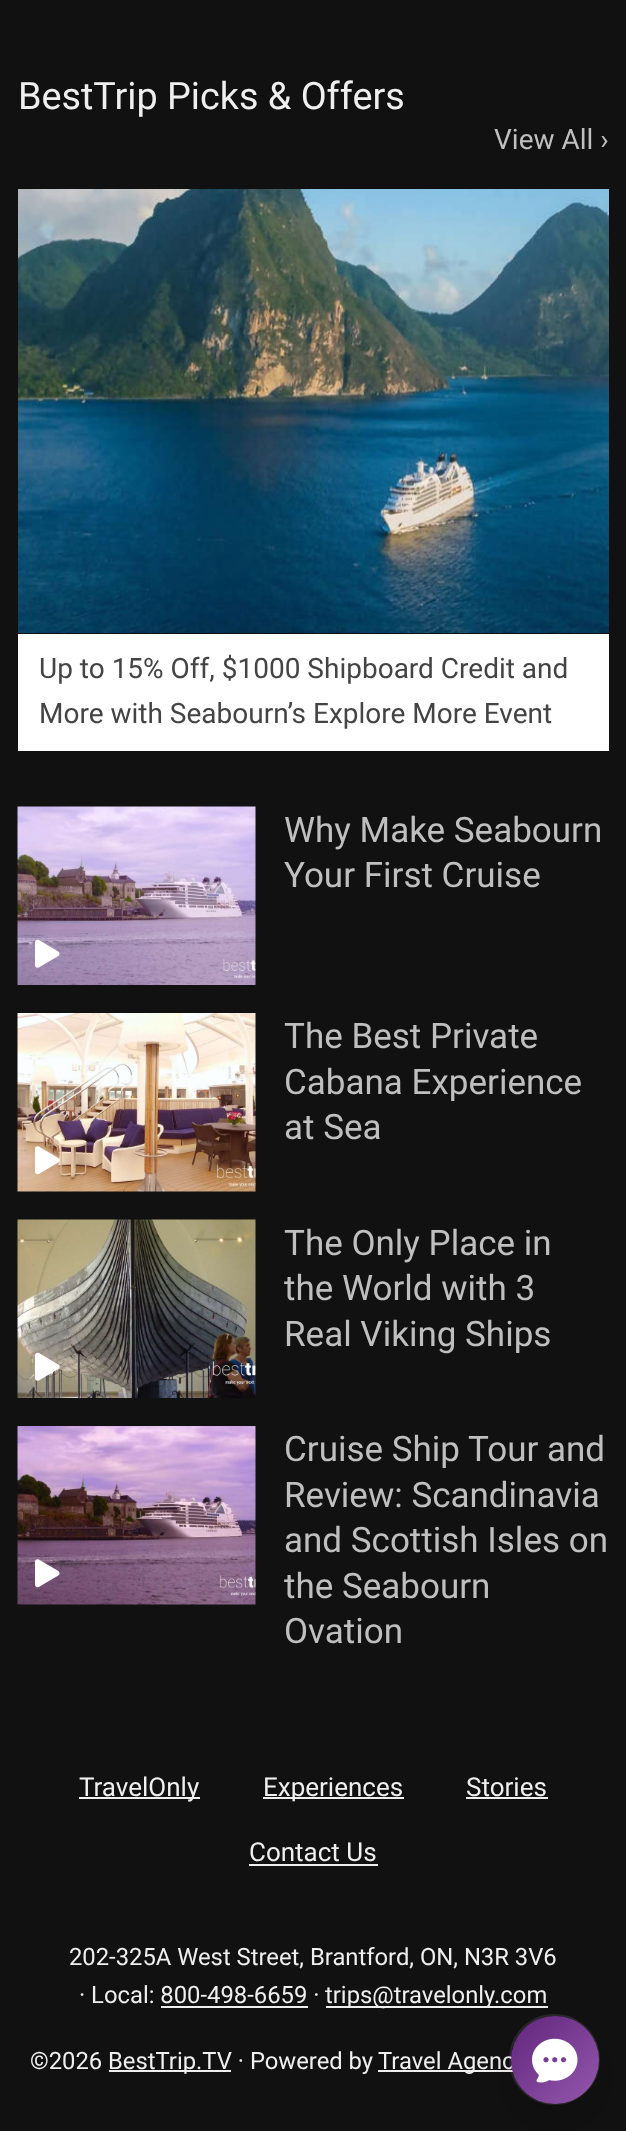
<?xml version="1.0" encoding="UTF-8"?>
<svg xmlns="http://www.w3.org/2000/svg" width="626" height="2131">
    <defs>
        <filter id="blur1" x="-50%" y="-200%" width="200%" height="500%"><feGaussianBlur stdDeviation="22"/></filter>
        <linearGradient id="g1" gradientUnits="userSpaceOnUse" x1="511" y1="2016" x2="599" y2="2104"><stop offset="0" stop-color="#62257C"/><stop offset="1" stop-color="#9558AF"/></linearGradient>
    </defs>
    <rect width="100%" height="100%" fill="#111111"/>
    <text x="18" y="109" font-family="Roboto" font-size="37.75" fill="#EFEFEF">BestTrip Picks &amp; Offers</text>
    <text x="494" y="149" font-family="Roboto" font-size="28" fill="#BFBFBF">View All ›</text>
    <image x="18" y="189" width="591" height="444" href="img_01.png"/>
    <rect x="18" y="634" width="591" height="117" fill="#FFFFFF"/>
    <text font-family="Roboto" font-size="28" fill="#444444">
        <tspan x="39" y="678">Up to 15% Off, $1000 Shipboard Credit and</tspan>
        <tspan x="39" y="723">More with Seabourn’s Explore More Event</tspan>
    </text>
    <image x="17" y="806" width="239" height="179" href="img_02.png"/>
    <image x="35" y="939" width="25" height="29" href="img_03.png"/>
    <text font-family="Roboto" font-size="35" fill="#BFBFBF">
        <tspan x="284" y="842">Why Make Seabourn</tspan>
        <tspan x="284" y="887">Your First Cruise</tspan>
    </text>
    <image x="17" y="1013" width="239" height="179" href="img_04.png"/>
    <image x="35" y="1146" width="25" height="29" href="img_05.png"/>
    <text font-family="Roboto" font-size="35" fill="#BFBFBF">
        <tspan x="284" y="1048">The Best Private</tspan>
        <tspan x="284" y="1094">Cabana Experience</tspan>
        <tspan x="284" y="1139">at Sea</tspan>
    </text>
    <image x="17" y="1219" width="239" height="179" href="img_06.png"/>
    <image x="35" y="1352" width="25" height="29" href="img_07.png"/>
    <text font-family="Roboto" font-size="35" fill="#BFBFBF">
        <tspan x="284" y="1255">The Only Place in</tspan>
        <tspan x="284" y="1300">the World with 3</tspan>
        <tspan x="284" y="1346">Real Viking Ships</tspan>
    </text>
    <image x="17" y="1426" width="239" height="179" href="img_08.png"/>
    <image x="35" y="1559" width="25" height="29" href="img_09.png"/>
    <text font-family="Roboto" font-size="35" fill="#BFBFBF">
        <tspan x="284" y="1461">Cruise Ship Tour and</tspan>
        <tspan x="284" y="1507">Review: Scandinavia</tspan>
        <tspan x="284" y="1552">and Scottish Isles on</tspan>
        <tspan x="284" y="1598">the Seabourn</tspan>
        <tspan x="284" y="1643">Ovation</tspan>
    </text>
    <rect x="79" y="1797" width="121" height="2" fill="#EFEFEF"/>
    <text x="79" y="1796" font-family="Roboto" font-size="26" fill="#EFEFEF">TravelOnly</text>
    <rect x="263" y="1797" width="141" height="2" fill="#EFEFEF"/>
    <text x="263" y="1796" font-family="Roboto" font-size="26" fill="#EFEFEF">Experiences</text>
    <text x="466" y="1796" font-family="Roboto" font-size="26" fill="#EFEFEF">Stories</text>
    <rect x="466" y="1797" width="82" height="2" fill="#EFEFEF"/>
    <text x="249" y="1861" font-family="Roboto" font-size="26" fill="#EFEFEF">Contact Us</text>
    <rect x="249" y="1864" width="129" height="2" fill="#EFEFEF"/>
    <text x="69" y="1965" font-family="Roboto" font-size="23.8" fill="#EFEFEF">202-325A West Street, Brantford, ON, N3R 3V6</text>
    <text x="79" y="2003" font-family="Roboto" font-size="23.8" fill="#EFEFEF">· Local: 800-498-6659 ·</text>
    <rect x="326" y="2006" width="222" height="2" fill="#EFEFEF"/>
    <text x="325" y="2003" font-family="Roboto" font-size="23.8" fill="#EFEFEF">trips@travelonly.com</text>
    <rect x="161" y="2006" width="147" height="2" fill="#EFEFEF"/>
    <text x="30" y="2069" font-family="Roboto" font-size="23.8" fill="#EFEFEF">©2026</text>
    <rect x="109" y="2070" width="122" height="2" fill="#EFEFEF"/>
    <text x="108" y="2069" font-family="Roboto" font-size="23.8" fill="#EFEFEF">BestTrip.TV · Powered by</text>
    <rect x="378" y="2070" width="135" height="2" fill="#EFEFEF"/>
    <text x="378" y="2069" font-family="Roboto" font-size="23.8" fill="#EFEFEF">Travel Agenc</text>
    <circle cx="554.5" cy="2059.5" r="44.5" fill="none" stroke="#FFFFFF" stroke-opacity="0.1" stroke-width="2"/>
    <rect x="511" y="2034" width="88" height="87" rx="43.5" fill="#000000" fill-opacity="0.15" filter="url(#blur1)"/>
    <circle cx="555" cy="2060" r="44" fill="url(#g1)"/>
    <image x="532" y="2038" width="46" height="45" href="img_10.png"/>
</svg>
